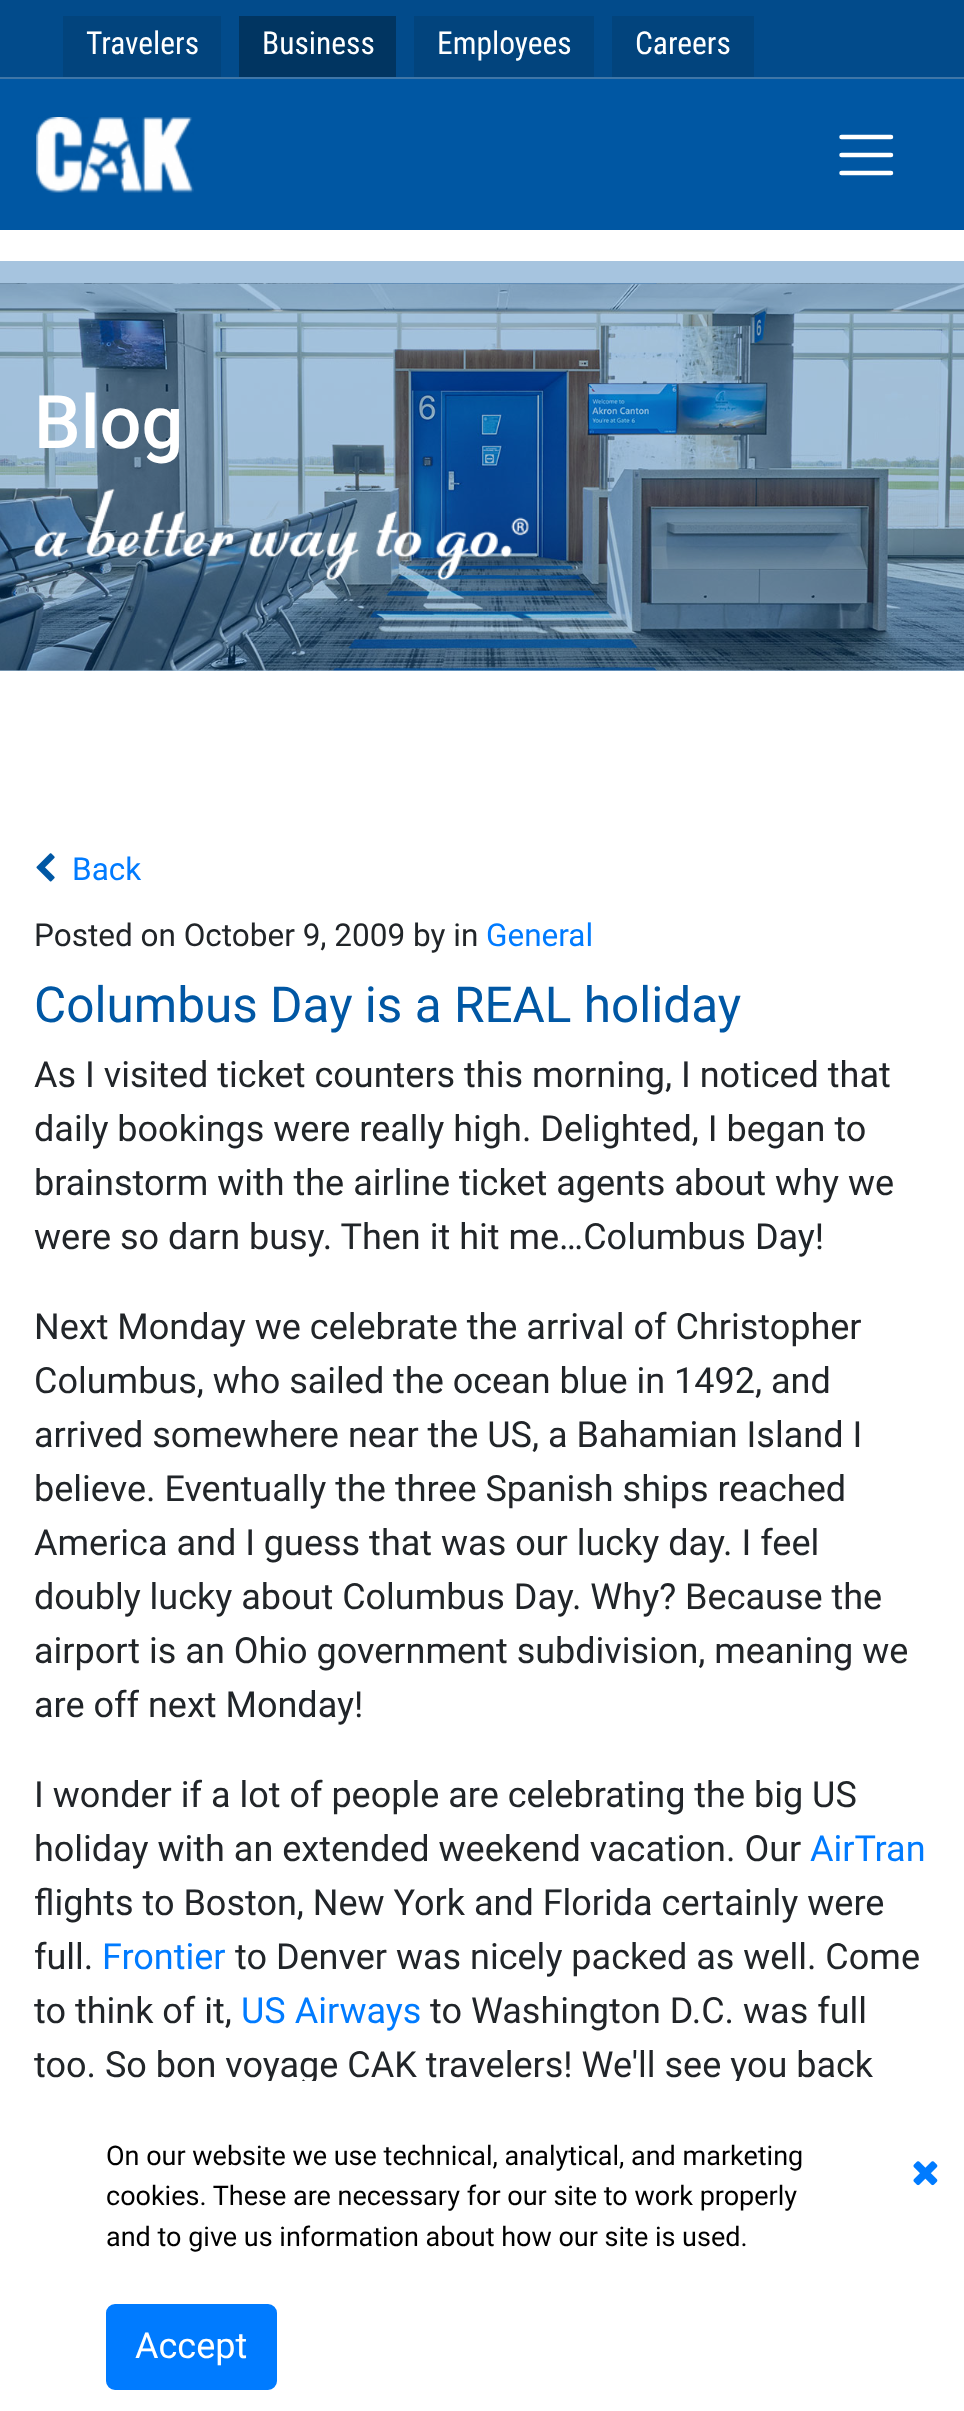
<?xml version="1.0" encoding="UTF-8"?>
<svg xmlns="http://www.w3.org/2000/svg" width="964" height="2411">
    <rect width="100%" height="100%" fill="#FFFFFF"/>
    <rect x="0" y="261" width="964" height="410" fill="#A6C4DF"/>
    <rect x="0" y="0" width="964" height="77" fill="#024B8B"/>
    <rect x="0" y="77" width="964" height="2" fill="#3F76A7"/>
    <rect x="63" y="16" width="158" height="61" fill="#02447D"/>
    <text x="86" y="54" font-family="Roboto Condensed" font-size="31.5" fill="#FFFFFF">Travelers</text>
    <rect x="239" y="16" width="157" height="61" fill="#013561"/>
    <text x="262" y="54" font-family="Roboto Condensed" font-size="31.5" fill="#FFFFFF">Business</text>
    <rect x="414" y="16" width="180" height="61" fill="#02447D"/>
    <text x="437" y="54" font-family="Roboto Condensed" font-size="31.5" fill="#FFFFFF">Employees</text>
    <rect x="612" y="16" width="142" height="61" fill="#02447D"/>
    <text x="635" y="54" font-family="Roboto Condensed" font-size="31.5" fill="#FFFFFF">Careers</text>
    <rect x="0" y="79" width="964" height="151" fill="#0057A3"/>
    <image x="36" y="117" width="158" height="76" href="img_01.png"/>
    <path d="M 841.5 137 H 891 M 841.5 155 H 891 M 841.5 173 H 891" fill="none" stroke="#FFFFFF" stroke-width="4.5" stroke-linecap="round"/>
    <image x="0" y="283" width="964" height="388" href="img_02.png"/>
    <text x="34" y="448" font-family="Roboto" font-size="74" font-weight="500" fill="#FFFFFF">Blog</text>
    <image x="33" y="488" width="496" height="93" href="img_03.png"/>
    <image x="36" y="853" width="19" height="29" href="img_04.png"/>
    <text x="72" y="880" font-family="Roboto" font-size="31.5" fill="#007BFF">Back</text>
    <text x="34" y="946" font-family="Roboto" font-size="31.5" fill="#212529">Posted on October 9, 2009 by in</text>
    <text x="486" y="946" font-family="Roboto" font-size="31.5" fill="#007BFF">General</text>
    <text x="34" y="1022" font-family="Roboto" font-size="49.5" fill="#0057A4">Columbus Day is a REAL holiday</text>
    <text font-family="Roboto" font-size="36" fill="#212529">
        <tspan x="34" y="1087">As I visited ticket counters this morning, I noticed that</tspan>
        <tspan x="34" y="1141">daily bookings were really high. Delighted, I began to</tspan>
        <tspan x="34" y="1195">brainstorm with the airline ticket agents about why we</tspan>
        <tspan x="34" y="1249">were so darn busy. Then it hit me…Columbus Day!</tspan>
    </text>
    <text font-family="Roboto" font-size="36" fill="#212529">
        <tspan x="34" y="1339">Next Monday we celebrate the arrival of Christopher</tspan>
        <tspan x="34" y="1393">Columbus, who sailed the ocean blue in 1492, and</tspan>
        <tspan x="34" y="1447">arrived somewhere near the US, a Bahamian Island I</tspan>
        <tspan x="34" y="1501">believe. Eventually the three Spanish ships reached</tspan>
        <tspan x="34" y="1555">America and I guess that was our lucky day. I feel</tspan>
        <tspan x="34" y="1609">doubly lucky about Columbus Day. Why? Because the</tspan>
        <tspan x="34" y="1663">airport is an Ohio government subdivision, meaning we</tspan>
        <tspan x="34" y="1717">are off next Monday!</tspan>
    </text>
    <text font-family="Roboto" font-size="36" fill="#212529">
        <tspan x="34" y="1807">I wonder if a lot of people are celebrating the big US</tspan>
        <tspan x="34" y="1861">holiday with an extended weekend vacation. Our</tspan>
    </text>
    <text x="810" y="1861" font-family="Roboto" font-size="36" fill="#007BFF">AirTran</text>
    <text font-family="Roboto" font-size="36" fill="#212529">
        <tspan x="34" y="1915">flights to Boston, New York and Florida certainly were</tspan>
        <tspan x="34" y="1969">full.</tspan>
    </text>
    <text x="102" y="1969" font-family="Roboto" font-size="36" fill="#007BFF">Frontier</text>
    <text x="235" y="1969" font-family="Roboto" font-size="36" fill="#212529">to Denver was nicely packed as well. Come</text>
    <text x="34" y="2023" font-family="Roboto" font-size="36" fill="#212529">to think of it,</text>
    <text x="241" y="2023" font-family="Roboto" font-size="36" fill="#007BFF">US Airways</text>
    <text x="430" y="2023" font-family="Roboto" font-size="36" fill="#212529">to Washington D.C. was full</text>
    <text x="34" y="2077" font-family="Roboto" font-size="36" fill="#212529">too. So bon voyage CAK travelers! We'll see you back</text>
    <rect x="263" y="2081" width="476" height="4" fill="#FFFFFF"/>
    <text font-family="Roboto" font-size="27" fill="#000000">
        <tspan x="106" y="2165">On our website we use technical, analytical, and marketing</tspan>
        <tspan x="106" y="2205">cookies. These are necessary for our site to work properly</tspan>
        <tspan x="106" y="2246">and to give us information about how our site is used.</tspan>
    </text>
    <image x="913" y="2161" width="25" height="25" href="img_05.png"/>
    <rect x="107" y="2305" width="169" height="84" rx="8" fill="#007BFF" stroke="#007BFF" stroke-width="2"/>
    <text x="135" y="2358" font-family="Roboto" font-size="36" fill="#FFFFFF">Accept</text>
</svg>
